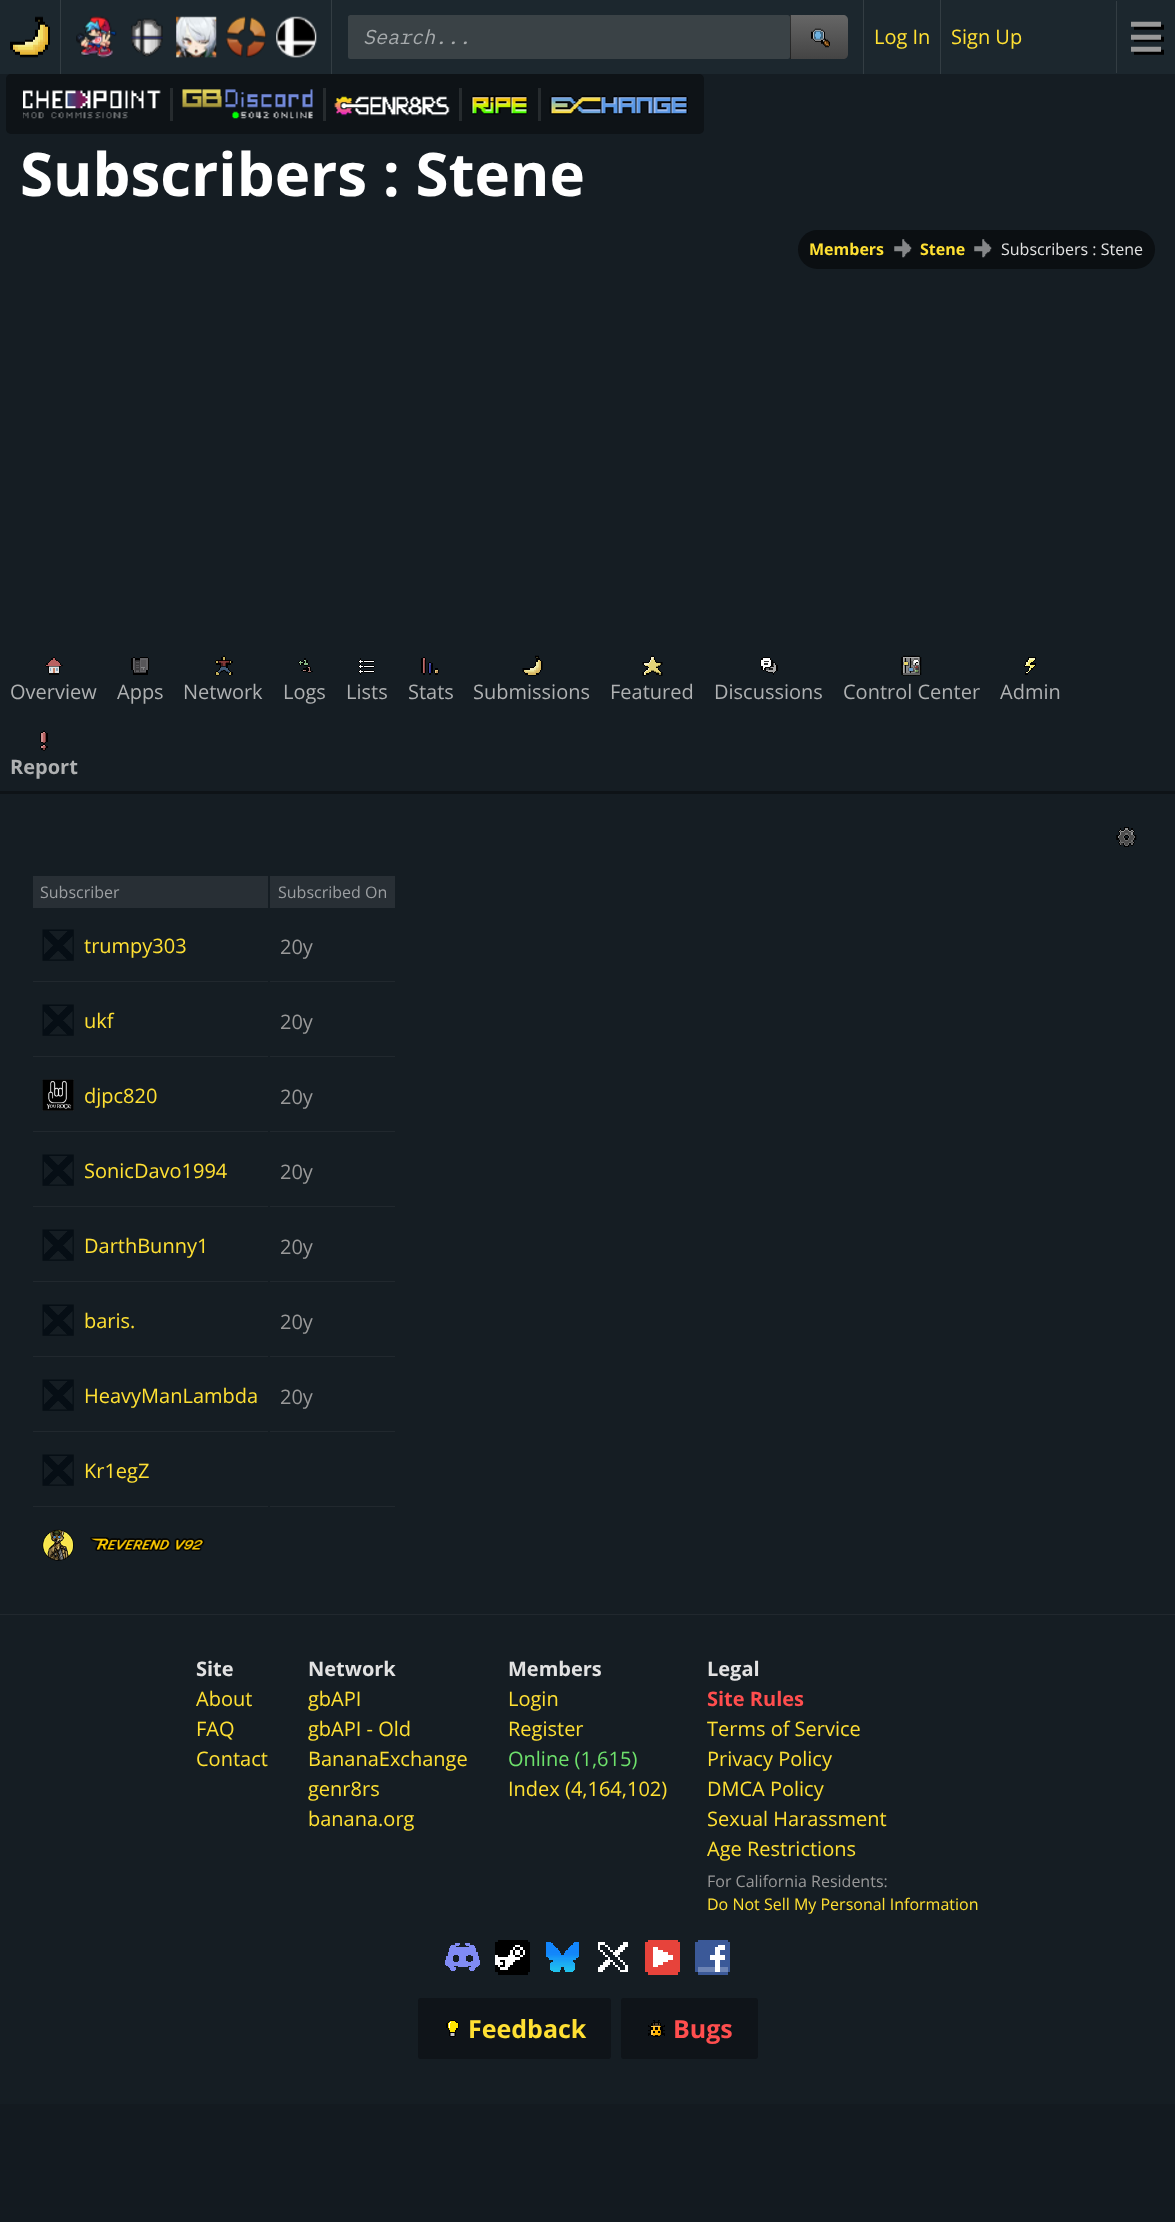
<?xml version="1.0" encoding="UTF-8"?>
<svg xmlns="http://www.w3.org/2000/svg" width="1175" height="2222">
    <defs>
        <linearGradient id="g1" gradientUnits="userSpaceOnUse" x1="819" y1="15" x2="819" y2="59"><stop offset="0" stop-color="#666666"/><stop offset="1" stop-color="#444444"/></linearGradient>
        <linearGradient id="g2" gradientUnits="userSpaceOnUse" x1="819" y1="15" x2="819" y2="59"><stop offset="0" stop-color="#333333"/><stop offset="1" stop-color="#222222"/></linearGradient>
    </defs>
    <rect width="100%" height="100%" fill="#131A20"/>
    <rect x="0" y="0" width="1175" height="74" fill="#1C272E"/>
    <image x="10" y="16" width="40" height="42" href="img_01.png"/>
    <rect x="60" y="0" width="1" height="74" fill="#333D43"/>
    <image x="76" y="16" width="41" height="42" href="img_02.png"/>
    <image x="131" y="18" width="32" height="39" href="img_03.png"/>
    <image x="176" y="16" width="41" height="42" href="img_04.png"/>
    <image x="226" y="16" width="41" height="42" href="img_05.png"/>
    <image x="276" y="16" width="41" height="42" href="img_06.png"/>
    <rect x="331" y="0" width="1" height="74" fill="#333D43"/>
    <rect x="348" y="15" width="442" height="44" rx="2.5" fill="#3A4246"/>
    <text x="363" y="44" font-family="IBM Plex Mono" font-size="20" font-style="italic" fill="#A6AAAC">Search...</text>
    <path d="M 790 15 H 843 C 846 15 848 17 848 20 V 54 C 848 57 846 59 843 59 H 790 Z" fill="url(#g1)"/>
    <rect x="790" y="15" width="1" height="44" fill="url(#g2)"/>
    <image x="811" y="28" width="19" height="20" href="img_07.png"/>
    <rect x="863" y="0" width="1" height="74" fill="#333D43"/>
    <text x="874" y="44" font-family="Open Sans" font-size="20" fill="#FFE033">Log In</text>
    <rect x="940" y="0" width="1" height="74" fill="#333D43"/>
    <text x="951" y="44" font-family="Open Sans" font-size="20" fill="#FFE033">Sign Up</text>
    <rect x="1116" y="1" width="1" height="72" fill="#333D43"/>
    <image x="1131" y="21" width="33" height="34" href="img_08.png"/>
    <rect x="0" y="74" width="1175" height="1540" fill="#151D23"/>
    <text x="20" y="196" font-family="Open Sans" font-size="60" font-weight="700" fill="#FFFFFF">Subscribers : Stene</text>
    <rect x="798" y="230" width="357" height="39" rx="19.5" fill="#0B0F12"/>
    <text x="809" y="255" font-family="Open Sans" font-size="16" font-weight="700" fill="#FFE033">Members</text>
    <image x="894" y="239" width="18" height="19" href="img_09.png"/>
    <text x="920" y="255" font-family="Open Sans" font-size="16" font-weight="700" fill="#FFE033">Stene</text>
    <image x="974" y="239" width="18" height="19" href="img_09.png"/>
    <text x="1001" y="255" font-family="Open Sans" font-size="16" fill="#E2E2E2">Subscribers : Stene</text>
    <rect x="0" y="791" width="1175" height="3" fill="#0E1317"/>
    <image x="45" y="657" width="18" height="18" href="img_10.png"/>
    <text x="10" y="699" font-family="Open Sans" font-size="20" fill="#AFB1B2">Overview</text>
    <image x="131" y="657" width="18" height="18" href="img_11.png"/>
    <text x="117" y="699" font-family="Open Sans" font-size="20" fill="#AFB1B2">Apps</text>
    <image x="215" y="655" width="18" height="21" href="img_12.png"/>
    <text x="183" y="699" font-family="Open Sans" font-size="20" fill="#AFB1B2">Network</text>
    <image x="298" y="658" width="15" height="15" href="img_13.png"/>
    <text x="283" y="699" font-family="Open Sans" font-size="20" fill="#AFB1B2">Logs</text>
    <image x="358" y="658" width="17" height="17" href="img_14.png"/>
    <text x="346" y="699" font-family="Open Sans" font-size="20" fill="#AFB1B2">Lists</text>
    <image x="421" y="657" width="18" height="18" href="img_15.png"/>
    <text x="408" y="699" font-family="Open Sans" font-size="20" fill="#AFB1B2">Stats</text>
    <image x="522" y="655" width="21" height="21" href="img_16.png"/>
    <text x="473" y="699" font-family="Open Sans" font-size="20" fill="#AFB1B2">Submissions</text>
    <image x="642" y="655" width="21" height="21" href="img_17.png"/>
    <text x="610" y="699" font-family="Open Sans" font-size="20" fill="#AFB1B2">Featured</text>
    <image x="760" y="657" width="18" height="18" href="img_18.png"/>
    <text x="714" y="699" font-family="Open Sans" font-size="20" fill="#AFB1B2">Discussions</text>
    <image x="901" y="655" width="21" height="21" href="img_19.png"/>
    <text x="843" y="699" font-family="Open Sans" font-size="20" fill="#AFB1B2">Control Center</text>
    <image x="1024" y="657" width="12" height="18" href="img_20.png"/>
    <text x="1000" y="699" font-family="Open Sans" font-size="20" fill="#AFB1B2">Admin</text>
    <image x="40" y="730" width="8" height="21" href="img_21.png"/>
    <text x="10" y="774" font-family="Open Sans" font-size="20" font-weight="700" fill="#AFB1B2">Report</text>
    <rect x="0" y="1614" width="1175" height="1" fill="#21282E"/>
    <image x="1116" y="827" width="21" height="20" href="img_22.png"/>
    <rect x="33" y="876" width="235" height="32" fill="#282F35"/>
    <text x="40" y="898" font-family="Open Sans" font-size="16" fill="#9C9FA2">Subscriber</text>
    <rect x="270" y="876" width="125" height="32" fill="#282F35"/>
    <text x="278" y="898" font-family="Open Sans" font-size="16" fill="#9C9FA2">Subscribed On</text>
    <rect x="33" y="981" width="235" height="1" fill="#21282E"/>
    <image x="42" y="929" width="32" height="32" href="img_23.png"/>
    <text x="84" y="953" font-family="Open Sans" font-size="20" fill="#FFE033">trumpy303</text>
    <rect x="270" y="981" width="125" height="1" fill="#21282E"/>
    <text x="280" y="954" font-family="Open Sans" font-size="20" fill="#999999">20y</text>
    <rect x="33" y="1056" width="235" height="1" fill="#21282E"/>
    <image x="42" y="1004" width="32" height="32" href="img_23.png"/>
    <text x="84" y="1028" font-family="Open Sans" font-size="20" fill="#FFE033">ukf</text>
    <rect x="270" y="1056" width="125" height="1" fill="#21282E"/>
    <text x="280" y="1029" font-family="Open Sans" font-size="20" fill="#999999">20y</text>
    <rect x="33" y="1131" width="235" height="1" fill="#21282E"/>
    <image x="42" y="1079" width="32" height="32" href="img_24.png"/>
    <text x="84" y="1103" font-family="Open Sans" font-size="20" fill="#FFE033">djpc820</text>
    <rect x="270" y="1131" width="125" height="1" fill="#21282E"/>
    <text x="280" y="1104" font-family="Open Sans" font-size="20" fill="#999999">20y</text>
    <rect x="33" y="1206" width="235" height="1" fill="#21282E"/>
    <image x="42" y="1154" width="32" height="32" href="img_25.png"/>
    <text x="84" y="1178" font-family="Open Sans" font-size="20" fill="#FFE033">SonicDavo1994</text>
    <rect x="270" y="1206" width="125" height="1" fill="#21282E"/>
    <text x="280" y="1179" font-family="Open Sans" font-size="20" fill="#999999">20y</text>
    <rect x="33" y="1281" width="235" height="1" fill="#21282E"/>
    <image x="42" y="1229" width="32" height="32" href="img_23.png"/>
    <text x="84" y="1253" font-family="Open Sans" font-size="20" fill="#FFE033">DarthBunny1</text>
    <rect x="270" y="1281" width="125" height="1" fill="#21282E"/>
    <text x="280" y="1254" font-family="Open Sans" font-size="20" fill="#999999">20y</text>
    <rect x="33" y="1356" width="235" height="1" fill="#21282E"/>
    <image x="42" y="1304" width="32" height="32" href="img_23.png"/>
    <text x="84" y="1328" font-family="Open Sans" font-size="20" fill="#FFE033">baris.</text>
    <rect x="270" y="1356" width="125" height="1" fill="#21282E"/>
    <text x="280" y="1329" font-family="Open Sans" font-size="20" fill="#999999">20y</text>
    <rect x="33" y="1431" width="235" height="1" fill="#21282E"/>
    <image x="42" y="1379" width="32" height="32" href="img_23.png"/>
    <text x="84" y="1403" font-family="Open Sans" font-size="20" fill="#FFE033">HeavyManLambda</text>
    <rect x="270" y="1431" width="125" height="1" fill="#21282E"/>
    <text x="280" y="1404" font-family="Open Sans" font-size="20" fill="#999999">20y</text>
    <rect x="33" y="1506" width="235" height="1" fill="#21282E"/>
    <image x="42" y="1454" width="32" height="32" href="img_23.png"/>
    <text x="84" y="1478" font-family="Open Sans" font-size="20" fill="#FFE033">Kr1egZ</text>
    <rect x="270" y="1506" width="125" height="1" fill="#21282E"/>
    <image x="42" y="1529" width="32" height="32" href="img_26.png"/>
    <image x="90" y="1537" width="115" height="14" href="img_27.png"/>
    <rect x="0" y="1615" width="1175" height="489" fill="#151D23"/>
    <text x="196" y="1676" font-family="Open Sans" font-size="20" font-weight="700" fill="#E2E2E2">Site</text>
    <text font-family="Open Sans" font-size="20" fill="#FFE033">
        <tspan x="196" y="1706">About</tspan>
        <tspan x="196" y="1736">FAQ</tspan>
        <tspan x="196" y="1766">Contact</tspan>
    </text>
    <text x="308" y="1676" font-family="Open Sans" font-size="20" font-weight="700" fill="#E2E2E2">Network</text>
    <text font-family="Open Sans" font-size="20" fill="#FFE033">
        <tspan x="308" y="1706">gbAPI</tspan>
        <tspan x="308" y="1736">gbAPI - Old</tspan>
        <tspan x="308" y="1766">BananaExchange</tspan>
        <tspan x="308" y="1796">genr8rs</tspan>
        <tspan x="308" y="1826">banana.org</tspan>
    </text>
    <text x="508" y="1676" font-family="Open Sans" font-size="20" font-weight="700" fill="#E2E2E2">Members</text>
    <text font-family="Open Sans" font-size="20" fill="#FFE033">
        <tspan x="508" y="1706">Login</tspan>
        <tspan x="508" y="1736">Register</tspan>
    </text>
    <text x="508" y="1766" font-family="Open Sans" font-size="20" fill="#6EE16C">Online (1,615)</text>
    <text x="508" y="1796" font-family="Open Sans" font-size="20" fill="#FFE033">Index (4,164,102)</text>
    <text x="707" y="1676" font-family="Open Sans" font-size="20" font-weight="700" fill="#E2E2E2">Legal</text>
    <text x="707" y="1706" font-family="Open Sans" font-size="20" font-weight="700" fill="#FF4E4E">Site Rules</text>
    <text font-family="Open Sans" font-size="20" fill="#FFE033">
        <tspan x="707" y="1736">Terms of Service</tspan>
        <tspan x="707" y="1766">Privacy Policy</tspan>
        <tspan x="707" y="1796">DMCA Policy</tspan>
        <tspan x="707" y="1826">Sexual Harassment</tspan>
        <tspan x="707" y="1856">Age Restrictions</tspan>
    </text>
    <text x="707" y="1887" font-family="Open Sans" font-size="16" fill="#999999">For California Residents:</text>
    <text x="707" y="1910" font-family="Open Sans" font-size="16" fill="#FFE033">Do Not Sell My Personal Information</text>
    <image x="445" y="1943" width="35" height="28" href="img_28.png"/>
    <image x="495" y="1940" width="35" height="35" href="img_29.png"/>
    <image x="546" y="1942" width="33" height="30" href="img_30.png"/>
    <image x="598" y="1942" width="30" height="30" href="img_31.png"/>
    <image x="645" y="1940" width="35" height="35" href="img_32.png"/>
    <image x="695" y="1940" width="35" height="35" href="img_33.png"/>
    <rect x="418" y="1998" width="193" height="61" rx="3" fill="#0F1419"/>
    <image x="446" y="2020" width="13" height="17" href="img_34.png"/>
    <text x="468" y="2038" font-family="Open Sans" font-size="25" font-weight="700" fill="#FFE033">Feedback</text>
    <rect x="621" y="1998" width="137" height="61" rx="3" fill="#0F1419"/>
    <image x="648" y="2020" width="17" height="17" href="img_35.png"/>
    <text x="673" y="2038" font-family="Open Sans" font-size="25" font-weight="700" fill="#FF4E4E">Bugs</text>
    <rect x="6" y="74" width="698" height="60" rx="5" fill="#0E1317"/>
    <image x="23" y="90" width="138" height="29" href="img_36.png"/>
    <rect x="170" y="88" width="3" height="33" fill="#262B2E"/>
    <image x="182" y="89" width="131" height="19" href="img_37.png"/>
    <image x="232" y="111" width="8" height="8" href="img_38.png"/>
    <image x="240" y="111" width="7" height="8" href="img_39.png"/>
    <image x="248" y="111" width="7" height="8" href="img_40.png"/>
    <image x="255" y="111" width="7" height="8" href="img_41.png"/>
    <image x="263" y="111" width="7" height="8" href="img_42.png"/>
    <image x="273" y="111" width="40" height="8" href="img_43.png"/>
    <rect x="323" y="88" width="3" height="33" fill="#262B2E"/>
    <image x="334" y="96" width="116" height="20" href="img_44.png"/>
    <rect x="459" y="88" width="3" height="33" fill="#262B2E"/>
    <image x="471" y="95" width="57" height="20" href="img_45.png"/>
    <rect x="538" y="88" width="3" height="33" fill="#262B2E"/>
    <image x="549" y="95" width="139" height="20" href="img_46.png"/>
</svg>
